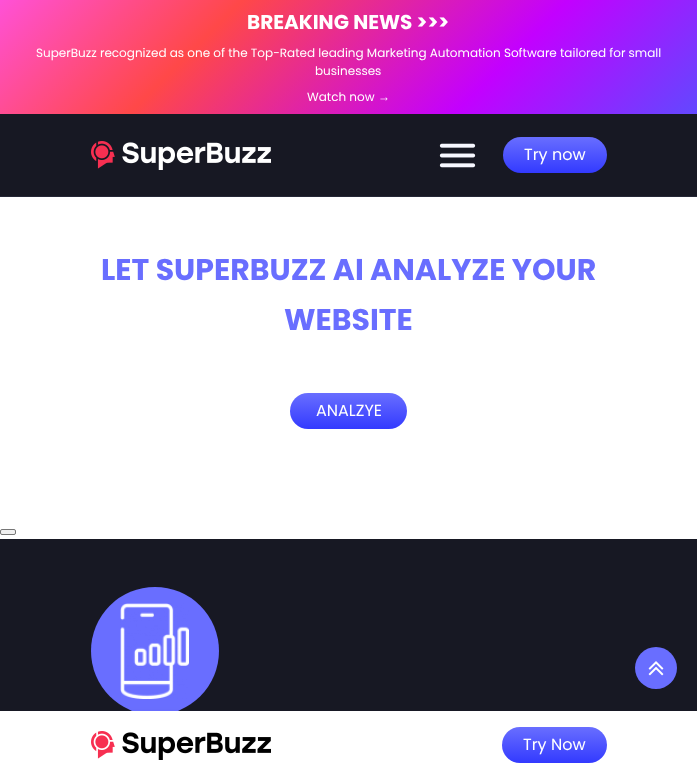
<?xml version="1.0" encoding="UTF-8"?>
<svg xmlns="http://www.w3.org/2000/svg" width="697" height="779">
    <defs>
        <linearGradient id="g1" gradientUnits="userSpaceOnUse" x1="146" y1="-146" x2="551" y2="260"><stop offset="0" stop-color="#FF51D7"/><stop offset="0.3" stop-color="#FF4848"/><stop offset="0.7" stop-color="#C300FF"/><stop offset="1" stop-color="#6248FF"/></linearGradient>
        <linearGradient id="g2" gradientUnits="userSpaceOnUse" x1="555" y1="137" x2="555" y2="173"><stop offset="0" stop-color="#696EFF"/><stop offset="1" stop-color="#333AFF"/></linearGradient>
        <linearGradient id="g3" gradientUnits="userSpaceOnUse" x1="349" y1="393" x2="349" y2="429"><stop offset="0" stop-color="#696EFF"/><stop offset="1" stop-color="#333AFF"/></linearGradient>
        <filter id="blur1" x="-50%" y="-200%" width="200%" height="500%"><feGaussianBlur stdDeviation="10"/></filter>
        <linearGradient id="g4" gradientUnits="userSpaceOnUse" x1="555" y1="727" x2="555" y2="763"><stop offset="0" stop-color="#696EFF"/><stop offset="1" stop-color="#333AFF"/></linearGradient>
    </defs>
    <rect width="100%" height="100%" fill="#FFFFFF"/>
    <rect x="0" y="114" width="697" height="82" fill="#171823"/>
    <rect x="0" y="196" width="697" height="1" fill="#252736"/>
    <rect x="0" y="0" width="697" height="114" fill="url(#g1)"/>
    <text x="247" y="29" font-family="Poppins" font-size="20" font-weight="700" fill="#FFFFFF">BREAKING NEWS &gt;&gt;&gt;</text>
    <text x="36" y="57" font-family="Poppins" font-size="12" fill="#FFFFFF">SuperBuzz recognized as one of the Top-Rated leading Marketing Automation Software tailored for small</text>
    <text x="315" y="75" font-family="Poppins" font-size="12" fill="#FFFFFF">businesses</text>
    <text x="307" y="101" font-family="Poppins" font-size="12" fill="#FFFFFF">Watch now</text>
    <text x="378" y="101" font-family="Liberation Sans" font-size="12" fill="#FFFFFF">→</text>
    <image x="91" y="141" width="180" height="29" href="img_01.png"/>
    <image x="439" y="143" width="37" height="25" href="img_02.png"/>
    <rect x="503" y="137" width="104" height="36" rx="18" fill="url(#g2)"/>
    <text x="524" y="160" font-family="Poppins" font-size="16" fill="#FFFFFF">Try now</text>
    <text x="101" y="280" font-family="Poppins" font-size="30" font-weight="700" fill="#696EFF">LET SUPERBUZZ AI ANALYZE YOUR</text>
    <text x="284" y="330" font-family="Poppins" font-size="30" font-weight="700" fill="#696EFF">WEBSITE</text>
    <rect x="290" y="393" width="117" height="36" rx="18" fill="url(#g3)"/>
    <text x="316" y="416" font-family="Poppins" font-size="16" fill="#FFFFFF">ANALZYE</text>
    <rect x="0.5" y="529.5" width="15" height="5" rx="1.5" fill="#EFEFEF" stroke="#767676"/>
    <rect x="0" y="539" width="697" height="172" fill="#171823"/>
    <circle cx="155" cy="651" r="64" fill="#696EFF"/>
    <image x="120" y="603" width="69" height="96" href="img_03.png"/>
    <circle cx="656" cy="668" r="21" fill="#696EFF"/>
    <image x="648" y="661" width="16" height="15" href="img_04.png"/>
    <rect x="0" y="731" width="697" height="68" fill="#4C5673" filter="url(#blur1)"/>
    <rect x="0" y="711" width="697" height="68" fill="#FFFFFF"/>
    <image x="91" y="731" width="180" height="29" href="img_05.png"/>
    <rect x="502" y="727" width="105" height="36" rx="18" fill="url(#g4)"/>
    <text x="523" y="750" font-family="Poppins" font-size="16" fill="#FFFFFF">Try Now</text>
</svg>
